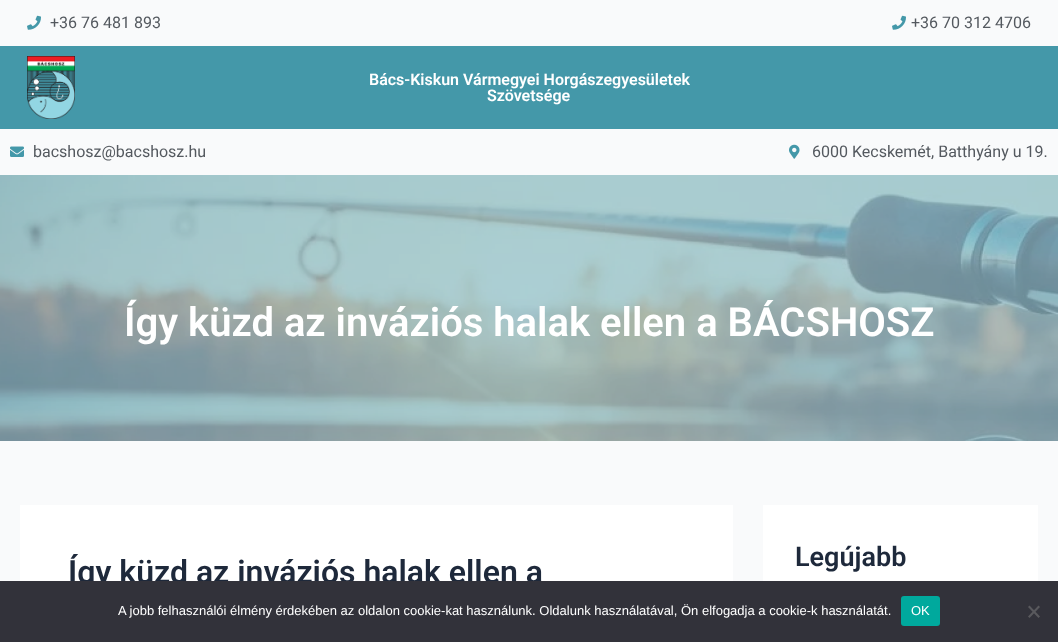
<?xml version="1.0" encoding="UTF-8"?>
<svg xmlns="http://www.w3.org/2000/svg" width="1058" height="642">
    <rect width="100%" height="100%" fill="#F9FAFB"/>
    <image x="27" y="15" width="14" height="15" href="img_01.png"/>
    <text x="50" y="28" font-family="Roboto" font-size="16" fill="#54595F">+36 76 481 893</text>
    <image x="892" y="15" width="14" height="15" href="img_01.png"/>
    <text x="911" y="28" font-family="Roboto" font-size="16" fill="#54595F">+36 70 312 4706</text>
    <rect x="0" y="46" width="1058" height="83" fill="#4498A9"/>
    <image x="27" y="56" width="48" height="63" href="img_02.png"/>
    <text x="369" y="85" font-family="Roboto" font-size="16" font-weight="600" fill="#FFFFFF">Bács-Kiskun Vármegyei Horgászegyesületek</text>
    <text x="487" y="101" font-family="Roboto" font-size="16" font-weight="600" fill="#FFFFFF">Szövetsége</text>
    <image x="10" y="146" width="14" height="11" href="img_03.png"/>
    <text x="33" y="157" font-family="Roboto" font-size="16" fill="#54595F">bacshosz@bacshosz.hu</text>
    <image x="789" y="144" width="11" height="15" href="img_04.png"/>
    <text x="812" y="157" font-family="Roboto" font-size="16" fill="#54595F">6000 Kecskemét, Batthyány u 19.</text>
    <rect x="0" y="175" width="1058" height="266" fill="#87BCC8"/>
    <image x="0" y="175" width="1058" height="266" href="img_05.png"/>
    <text x="124" y="336" font-family="Roboto" font-size="40" font-weight="600" fill="#FFFFFF">Így küzd az inváziós halak ellen a BÁCSHOSZ</text>
    <rect x="20" y="505" width="713" height="76" fill="#FFFFFF"/>
    <text x="68" y="583" font-family="Roboto" font-size="32" font-weight="600" fill="#1E293B">Így küzd az inváziós halak ellen a</text>
    <rect x="763" y="505" width="275" height="76" fill="#FFFFFF"/>
    <text x="795" y="566" font-family="Roboto" font-size="27" font-weight="600" fill="#1E293B">Legújabb</text>
    <rect x="0" y="581" width="1058" height="61" fill="#32323A"/>
    <text x="118" y="615" font-family="Liberation Sans" font-size="13" fill="#FFFFFF">A jobb felhasználói élmény érdekében az oldalon cookie-kat használunk. Oldalunk használatával, Ön elfogadja a cookie-k használatát.</text>
    <rect x="901" y="596" width="39" height="30" rx="3" fill="#00A99D"/>
    <text x="911" y="615" font-family="Liberation Sans" font-size="13" fill="#FFFFFF">OK</text>
    <path d="M 1038.5 605.5 L 1040 607 L 1029.5 618 L 1028 616.5 Z" fill="#59595D"/>
    <path d="M 1028 607 L 1029.5 605.5 L 1040 616.5 L 1038.5 618 Z" fill="#59595D"/>
</svg>
